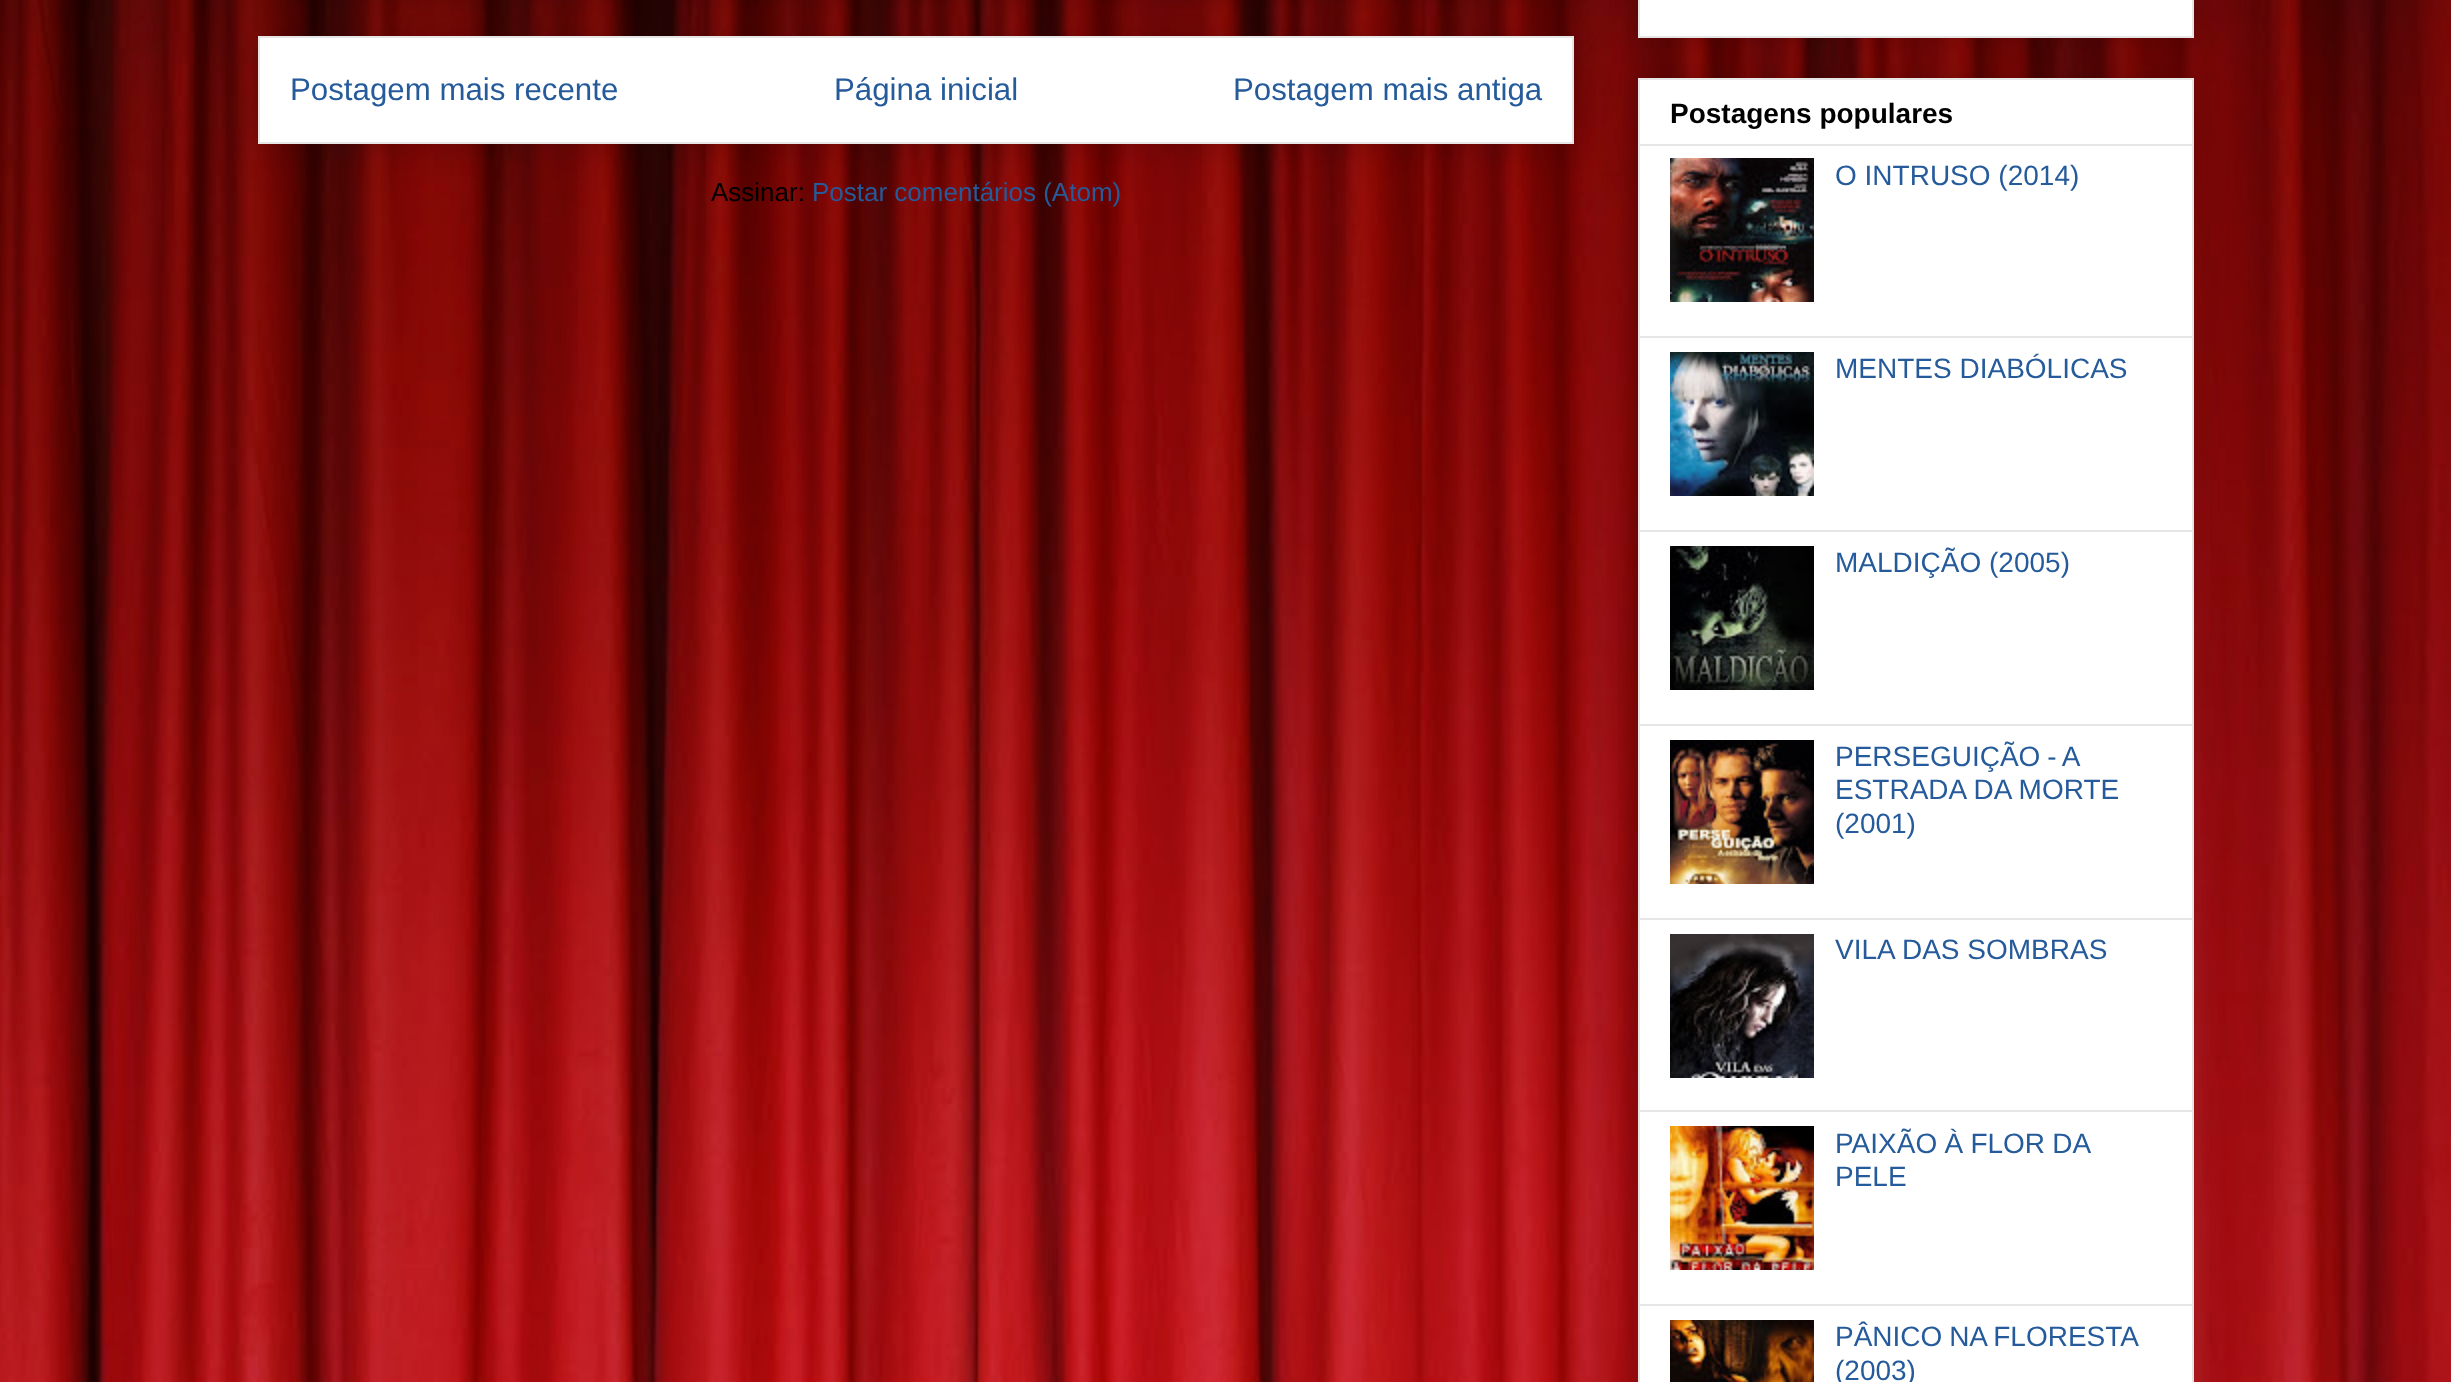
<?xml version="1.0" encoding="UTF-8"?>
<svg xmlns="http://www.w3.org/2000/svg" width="2451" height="1382">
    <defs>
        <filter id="blur1" x="-50%" y="-200%" width="200%" height="500%"><feGaussianBlur stdDeviation="20"/></filter>
    </defs>
    <rect width="100%" height="100%" fill="#FFFFFF"/>
    <image x="0" y="0" width="2451" height="1382" href="img_01.png"/>
    <rect x="258" y="36" width="1316" height="108" fill="#000000" fill-opacity="0.2" filter="url(#blur1)"/>
    <rect x="259" y="37" width="1314" height="106" fill="#FFFFFF" stroke="#E6E6E6" stroke-width="2"/>
    <rect x="258" y="-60" width="1316" height="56" fill="#000000" fill-opacity="0.2" filter="url(#blur1)"/>
    <text x="290" y="100" font-family="Liberation Sans" font-size="31.25" fill="#265B9B">Postagem mais recente</text>
    <text x="834" y="100" font-family="Liberation Sans" font-size="31.25" fill="#265B9B">Página inicial</text>
    <text x="1233" y="100" font-family="Liberation Sans" font-size="31.25" fill="#265B9B">Postagem mais antiga</text>
    <text x="711" y="201" font-family="Liberation Sans" font-size="26" fill="#000000">Assinar:</text>
    <text x="812" y="201" font-family="Liberation Sans" font-size="26" fill="#265B9B">Postar comentários (Atom)</text>
    <rect x="1638" y="-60" width="556" height="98" fill="#000000" fill-opacity="0.2" filter="url(#blur1)"/>
    <rect x="1639" y="-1" width="554" height="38" fill="#FFFFFF" stroke="#E6E6E6" stroke-width="2"/>
    <rect x="1638" y="78" width="556" height="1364" fill="#000000" fill-opacity="0.2" filter="url(#blur1)"/>
    <rect x="1639" y="79" width="554" height="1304" fill="#FFFFFF" stroke="#E6E6E6" stroke-width="2"/>
    <text x="1670" y="123" font-family="Liberation Sans" font-size="28" font-weight="700" fill="#000000">Postagens populares</text>
    <rect x="1640" y="144" width="552" height="2" fill="#E6E6E6"/>
    <image x="1670" y="158" width="144" height="144" href="img_02.png"/>
    <text x="1835" y="185" font-family="Liberation Sans" font-size="28" fill="#265B9B">O INTRUSO (2014)</text>
    <rect x="1640" y="336" width="552" height="2" fill="#E6E6E6"/>
    <image x="1670" y="352" width="144" height="144" href="img_03.png"/>
    <text x="1835" y="378" font-family="Liberation Sans" font-size="28" fill="#265B9B">MENTES DIABÓLICAS</text>
    <rect x="1640" y="530" width="552" height="2" fill="#E6E6E6"/>
    <image x="1670" y="546" width="144" height="144" href="img_04.png"/>
    <text x="1835" y="572" font-family="Liberation Sans" font-size="28" fill="#265B9B">MALDIÇÃO (2005)</text>
    <rect x="1640" y="724" width="552" height="2" fill="#E6E6E6"/>
    <image x="1670" y="740" width="144" height="144" href="img_05.png"/>
    <text font-family="Liberation Sans" font-size="28" fill="#265B9B">
        <tspan x="1835" y="766" word-spacing="-1">PERSEGUIÇÃO - A</tspan>
        <tspan x="1835" y="799">ESTRADA DA MORTE</tspan>
        <tspan x="1835" y="833">(2001)</tspan>
    </text>
    <rect x="1640" y="918" width="552" height="2" fill="#E6E6E6"/>
    <image x="1670" y="934" width="144" height="144" href="img_06.png"/>
    <text x="1835" y="959" font-family="Liberation Sans" font-size="28" fill="#265B9B">VILA DAS SOMBRAS</text>
    <rect x="1640" y="1110" width="552" height="2" fill="#E6E6E6"/>
    <image x="1670" y="1126" width="144" height="144" href="img_07.png"/>
    <text font-family="Liberation Sans" font-size="28" fill="#265B9B">
        <tspan x="1835" y="1153" word-spacing="-0.5">PAIXÃO À FLOR DA</tspan>
        <tspan x="1835" y="1186">PELE</tspan>
    </text>
    <rect x="1640" y="1304" width="552" height="2" fill="#E6E6E6"/>
    <image x="1670" y="1320" width="144" height="62" href="img_08.png"/>
    <text font-family="Liberation Sans" font-size="28" fill="#265B9B">
        <tspan x="1835" y="1346" word-spacing="-1">PÂNICO NA FLORESTA</tspan>
        <tspan x="1835" y="1380">(2003)</tspan>
    </text>
</svg>
